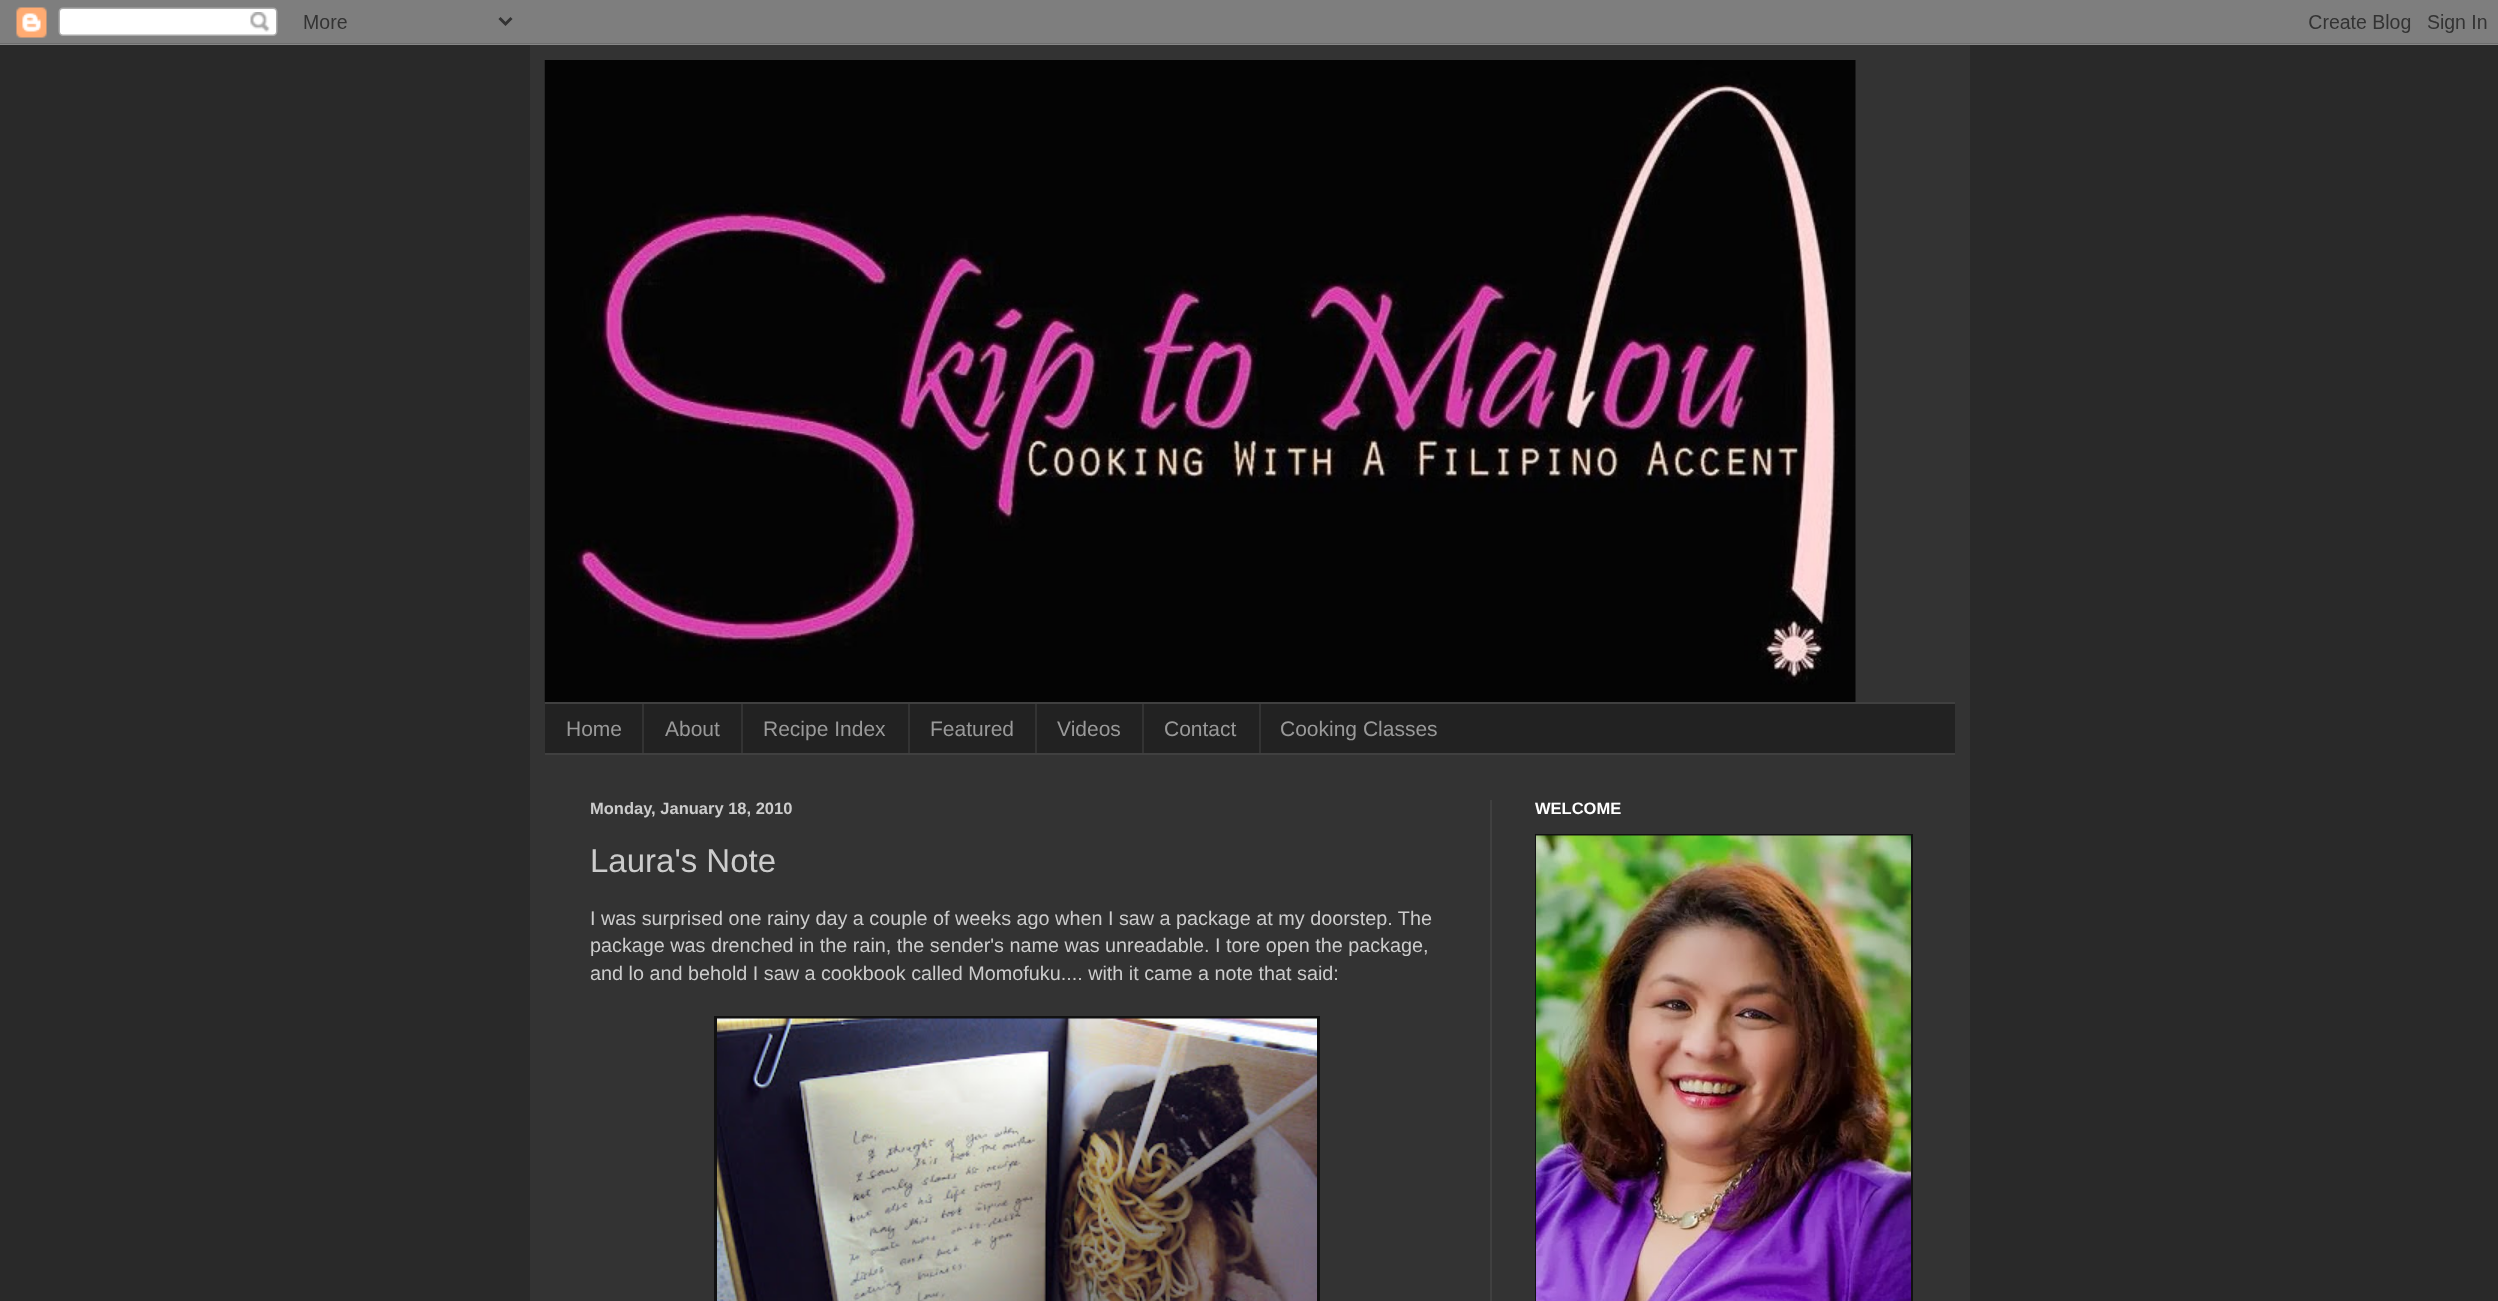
<?xml version="1.0" encoding="UTF-8"?>
<svg xmlns="http://www.w3.org/2000/svg" width="2498" height="1301">
    <rect width="100%" height="100%" fill="#292929"/>
    <image x="0" y="0" width="2498" height="45" href="img_01.png"/>
    <rect x="530" y="45" width="1440" height="1256" fill="#333333"/>
    <image x="544" y="60" width="1312" height="642" href="img_02.png"/>
    <rect x="545" y="704" width="1410" height="49" fill="#222222"/>
    <rect x="545" y="702" width="1410" height="2" fill="#404040"/>
    <rect x="545" y="753" width="1410" height="2" fill="#404040"/>
    <text x="566" y="736" font-family="Liberation Sans" font-size="21" fill="#999999">Home</text>
    <rect x="642" y="704" width="2" height="49" fill="#333333"/>
    <text x="665" y="736" font-family="Liberation Sans" font-size="21" fill="#999999">About</text>
    <rect x="741" y="704" width="2" height="49" fill="#333333"/>
    <text x="763" y="736" font-family="Liberation Sans" font-size="21" fill="#999999">Recipe Index</text>
    <rect x="908" y="704" width="2" height="49" fill="#333333"/>
    <text x="930" y="736" font-family="Liberation Sans" font-size="21" fill="#999999">Featured</text>
    <rect x="1035" y="704" width="2" height="49" fill="#333333"/>
    <text x="1057" y="736" font-family="Liberation Sans" font-size="21" fill="#999999">Videos</text>
    <rect x="1142" y="704" width="2" height="49" fill="#333333"/>
    <text x="1164" y="736" font-family="Liberation Sans" font-size="21" fill="#999999">Contact</text>
    <rect x="1259" y="704" width="2" height="49" fill="#333333"/>
    <text x="1280" y="736" font-family="Liberation Sans" font-size="21" fill="#999999">Cooking Classes</text>
    <rect x="1490" y="800" width="2" height="501" fill="#404040"/>
    <text x="590" y="814" font-family="Liberation Sans" font-size="16.5" font-weight="700" fill="#CCCCCC">Monday, January 18, 2010</text>
    <text x="590" y="872" font-family="Liberation Sans" font-size="33" fill="#CCCCCC">Laura's Note</text>
    <text font-family="Liberation Sans" font-size="19.8" fill="#CCCCCC">
        <tspan x="590" y="925">I was surprised one rainy day a couple of weeks ago when I saw a package at my doorstep. The</tspan>
        <tspan x="590" y="952">package was drenched in the rain, the sender's name was unreadable. I tore open the package,</tspan>
        <tspan x="590" y="980">and lo and behold I saw a cookbook called Momofuku.... with it came a note that said:</tspan>
    </text>
    <rect x="714" y="1016" width="606" height="285" fill="#111111"/>
    <image x="717" y="1018" width="600" height="283" href="img_03.png"/>
    <text x="1535" y="814" font-family="Liberation Sans" font-size="16.5" font-weight="700" fill="#FFFFFF">WELCOME</text>
    <rect x="1535" y="834" width="378" height="467" fill="#111111"/>
    <image x="1536" y="835" width="375" height="466" href="img_04.png"/>
</svg>
